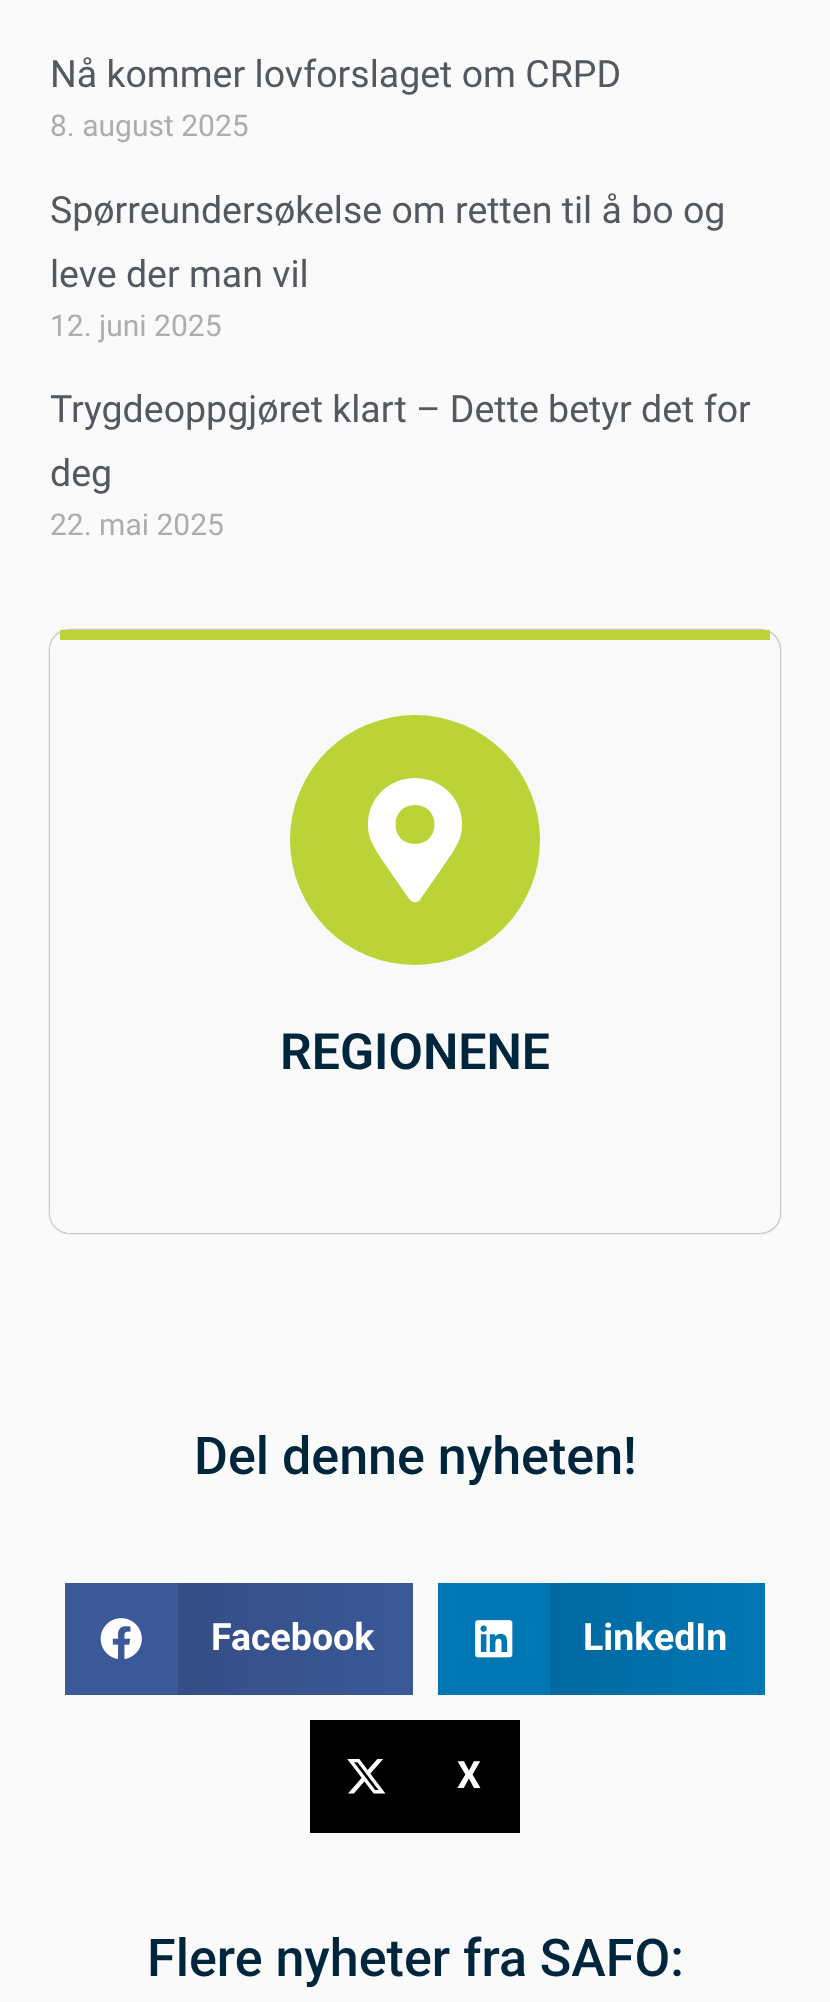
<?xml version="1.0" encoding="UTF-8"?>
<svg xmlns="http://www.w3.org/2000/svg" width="830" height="2002">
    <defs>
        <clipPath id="clip1"><path d="M 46 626 H 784 V 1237 H 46 Z M 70 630 H 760 C 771 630 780 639 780 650 V 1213 C 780 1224 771 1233 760 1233 H 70 C 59 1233 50 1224 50 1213 V 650 C 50 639 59 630 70 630 Z" clip-rule="evenodd"/></clipPath>
        <filter id="blur1" x="-50%" y="-200%" width="200%" height="500%"><feGaussianBlur stdDeviation="1"/></filter>
        <linearGradient id="g1" gradientUnits="userSpaceOnUse" x1="178" y1="1639" x2="413" y2="1639"><stop offset="0" stop-color="#344E86"/><stop offset="1" stop-color="#3B5998"/></linearGradient>
        <linearGradient id="g2" gradientUnits="userSpaceOnUse" x1="550" y1="1639" x2="765" y2="1639"><stop offset="0" stop-color="#00699F"/><stop offset="1" stop-color="#0077B5"/></linearGradient>
    </defs>
    <rect width="100%" height="100%" fill="#FAFAFA"/>
    <text x="50" y="87" font-family="Roboto" font-size="37.5" fill="#54595F">Nå kommer lovforslaget om CRPD</text>
    <text x="50" y="136" font-family="Roboto" font-size="30" fill="#ADADAD">8. august 2025</text>
    <text font-family="Roboto" font-size="37.5" fill="#54595F">
        <tspan x="50" y="223">Spørreundersøkelse om retten til å bo og</tspan>
        <tspan x="50" y="287">leve der man vil</tspan>
    </text>
    <text x="50" y="336" font-family="Roboto" font-size="30" fill="#ADADAD">12. juni 2025</text>
    <text font-family="Roboto" font-size="37.5" fill="#54595F">
        <tspan x="50" y="422">Trygdeoppgjøret klart – Dette betyr det for</tspan>
        <tspan x="50" y="486">deg</tspan>
    </text>
    <text x="50" y="535" font-family="Roboto" font-size="30" fill="#ADADAD">22. mai 2025</text>
    <g clip-path="url(#clip1)">
        <rect x="50" y="630" width="730" height="603" rx="20" fill="#000000" fill-opacity="0.6" filter="url(#blur1)"/>
    </g>
    <path d="M 70 640 H 760 C 771 640 780 644 780 650 V 1212 C 780 1224 771 1232 760 1232 H 70 C 59 1232 50 1224 50 1212 V 650 C 50 644 59 640 70 640 Z" fill="#F9F9F9"/>
    <rect x="60" y="630" width="710" height="10" fill="#BBD336"/>
    <circle cx="415" cy="840" r="125" fill="#BBD336"/>
    <path d="M 410 900 C 375 849 368 843 368 824 C 368 798 389 778 415 778 C 441 778 462 798 462 824 C 462 843 455 849 420 900 C 417 903 413 903 410 900 Z M 415 844 C 441 844 441 805 415 805 C 389 805 389 844 415 844 Z" fill="#FFFFFF"/>
    <text x="280" y="1069" font-family="Roboto" font-size="50" font-weight="600" fill="#00263D">REGIONENE</text>
    <text x="194" y="1474" font-family="Roboto" font-size="52" font-weight="500" fill="#00263D">Del denne nyheten!</text>
    <rect x="65" y="1583" width="113" height="112" fill="#3B5998"/>
    <image x="100" y="1618" width="42" height="41" href="img_01.png"/>
    <rect x="178" y="1583" width="235" height="112" fill="url(#g1)"/>
    <text x="211" y="1650" font-family="Roboto" font-size="37.5" font-weight="700" fill="#FFFFFF">Facebook</text>
    <rect x="438" y="1583" width="112" height="112" fill="#0077B5"/>
    <image x="475" y="1620" width="38" height="38" href="img_02.png"/>
    <rect x="550" y="1583" width="215" height="112" fill="url(#g2)"/>
    <text x="583" y="1650" font-family="Roboto" font-size="37.5" font-weight="700" fill="#FFFFFF">LinkedIn</text>
    <rect x="310" y="1720" width="210" height="113" fill="#000000"/>
    <image x="347" y="1759" width="39" height="35" href="img_03.png"/>
    <text x="457" y="1788" font-family="Roboto" font-size="37.5" font-weight="700" fill="#FFFFFF">X</text>
    <text x="147" y="1976" font-family="Roboto" font-size="52" font-weight="500" fill="#00263D">Flere nyheter fra SAFO:</text>
</svg>
